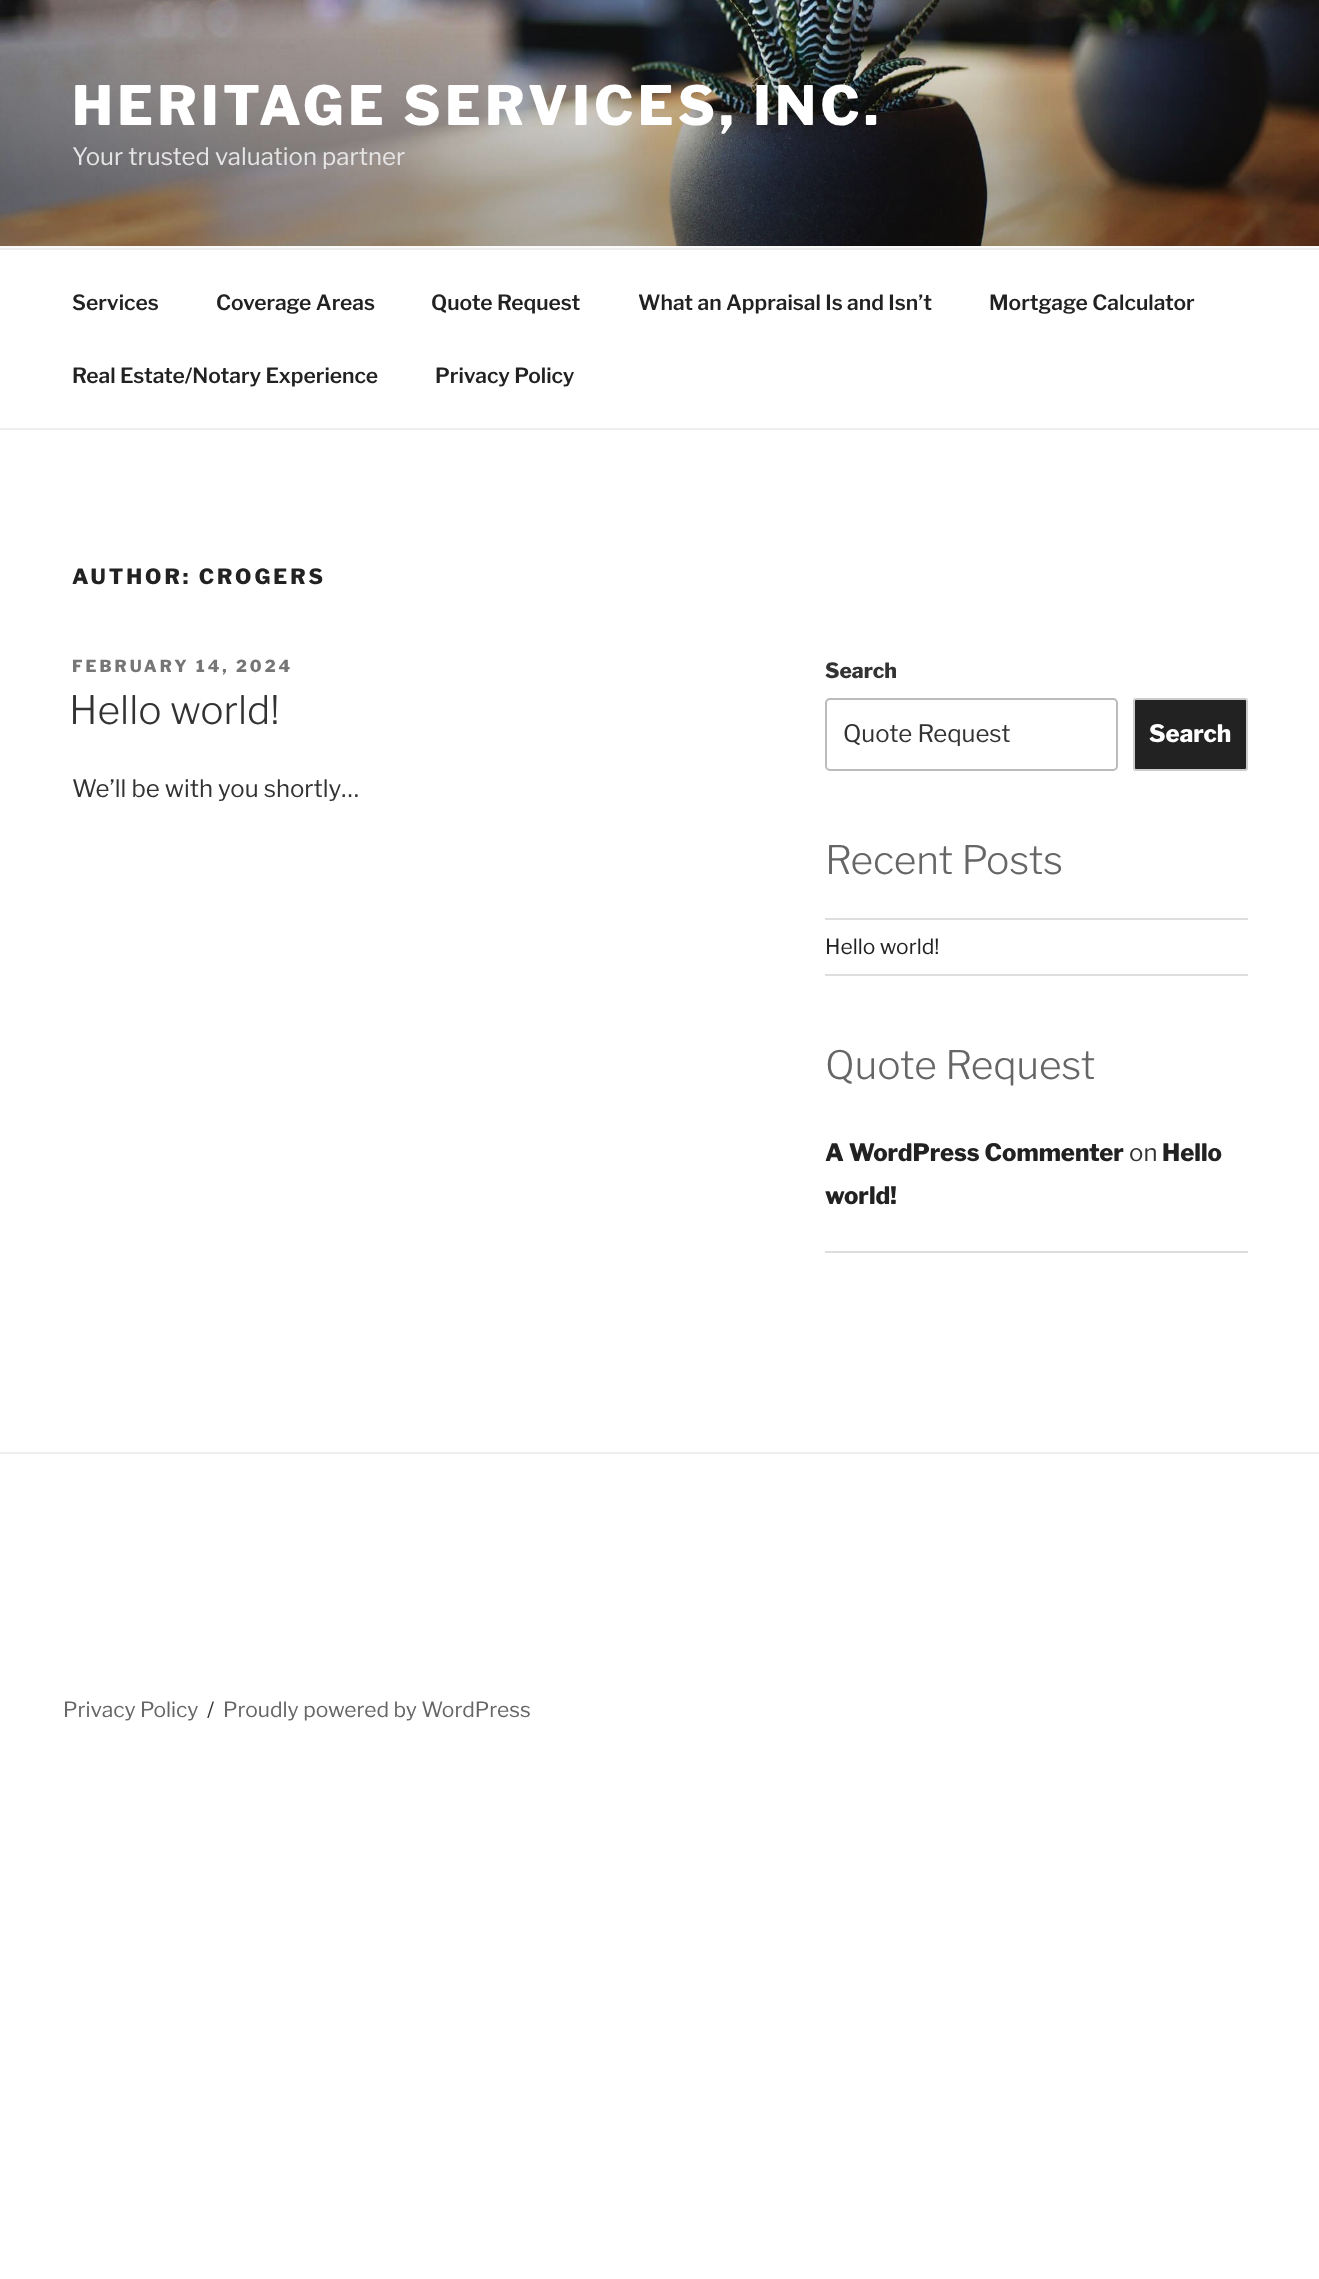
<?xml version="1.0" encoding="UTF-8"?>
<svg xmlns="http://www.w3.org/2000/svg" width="1319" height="2279">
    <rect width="100%" height="100%" fill="#FFFFFF"/>
    <rect x="0" y="246" width="1319" height="2" fill="#FAFAFA"/>
    <image x="0" y="0" width="1319" height="246" href="img_01.png"/>
    <text x="72" y="125" font-family="Libre Franklin" font-size="54" font-weight="800" letter-spacing="4.3" fill="#FFFFFF">HERITAGE SERVICES, INC.</text>
    <text x="72" y="165" font-family="Libre Franklin" font-size="24" fill="#E6E5E5">Your trusted valuation partner</text>
    <rect x="0" y="248" width="1319" height="2" fill="#EEEEEE"/>
    <rect x="0" y="428" width="1319" height="2" fill="#EEEEEE"/>
    <text x="72" y="310" font-family="Libre Franklin" font-size="21" font-weight="600" fill="#222222">Services</text>
    <text x="216" y="310" font-family="Libre Franklin" font-size="21" font-weight="600" fill="#222222">Coverage Areas</text>
    <text x="431" y="310" font-family="Libre Franklin" font-size="21" font-weight="600" fill="#222222">Quote Request</text>
    <text x="638" y="310" font-family="Libre Franklin" font-size="21" font-weight="600" fill="#222222">What an Appraisal Is and Isn’t</text>
    <text x="989" y="310" font-family="Libre Franklin" font-size="21" font-weight="600" fill="#222222">Mortgage Calculator</text>
    <text x="72" y="383" font-family="Libre Franklin" font-size="21" font-weight="600" fill="#222222">Real Estate/Notary Experience</text>
    <text x="435" y="383" font-family="Libre Franklin" font-size="21" font-weight="600" fill="#222222">Privacy Policy</text>
    <text x="72" y="584" font-family="Libre Franklin" font-size="21" font-weight="800" letter-spacing="3" fill="#222222">AUTHOR: CROGERS</text>
    <text x="72" y="672" font-family="Libre Franklin" font-size="16.5" font-weight="800" letter-spacing="3" fill="#767676">FEBRUARY 14, 2024</text>
    <text x="69" y="724" font-family="Libre Franklin" font-size="39" font-weight="300" fill="#333333">Hello world!</text>
    <text x="72" y="797" font-family="Libre Franklin" font-size="24" fill="#333333">We’ll be with you shortly…</text>
    <text x="825" y="678" font-family="Libre Franklin" font-size="21" font-weight="800" fill="#333333">Search</text>
    <rect x="826" y="699" width="291" height="71" rx="4" fill="none" stroke="#BBBBBB" stroke-width="2"/>
    <text x="843" y="742" font-family="Libre Franklin" font-size="24" fill="#333333">Quote Request</text>
    <rect x="1134" y="699" width="113" height="71" rx="2" fill="#222222" stroke="#CCCCCC" stroke-width="2"/>
    <text x="1149" y="742" font-family="Libre Franklin" font-size="24" font-weight="800" fill="#FFFFFF">Search</text>
    <text x="825" y="874" font-family="Libre Franklin" font-size="39" font-weight="300" fill="#666666">Recent Posts</text>
    <rect x="825" y="918" width="423" height="2" fill="#DDDDDD"/>
    <rect x="825" y="974" width="423" height="2" fill="#DDDDDD"/>
    <text x="825" y="954" font-family="Libre Franklin" font-size="21" fill="#222222">Hello world!</text>
    <text x="825" y="1079" font-family="Libre Franklin" font-size="39" font-weight="300" fill="#666666">Quote Request</text>
    <rect x="825" y="1251" width="423" height="2" fill="#DDDDDD"/>
    <text x="825" y="1161" font-family="Libre Franklin" font-size="24" font-weight="800" fill="#222222">A WordPress Commenter</text>
    <text x="1129" y="1161" font-family="Libre Franklin" font-size="24" fill="#333333">on</text>
    <text x="1162" y="1161" font-family="Libre Franklin" font-size="24" font-weight="800" fill="#222222">Hello</text>
    <text x="825" y="1204" font-family="Libre Franklin" font-size="24" font-weight="800" fill="#222222">world!</text>
    <rect x="0" y="1452" width="1319" height="2" fill="#EEEEEE"/>
    <text x="63" y="1717" font-family="Libre Franklin" font-size="21" fill="#666666">Privacy Policy</text>
    <text x="207" y="1717" font-family="Libre Franklin" font-size="21" fill="#333333">/</text>
    <text x="223" y="1717" font-family="Libre Franklin" font-size="21" fill="#666666">Proudly powered by WordPress</text>
</svg>
